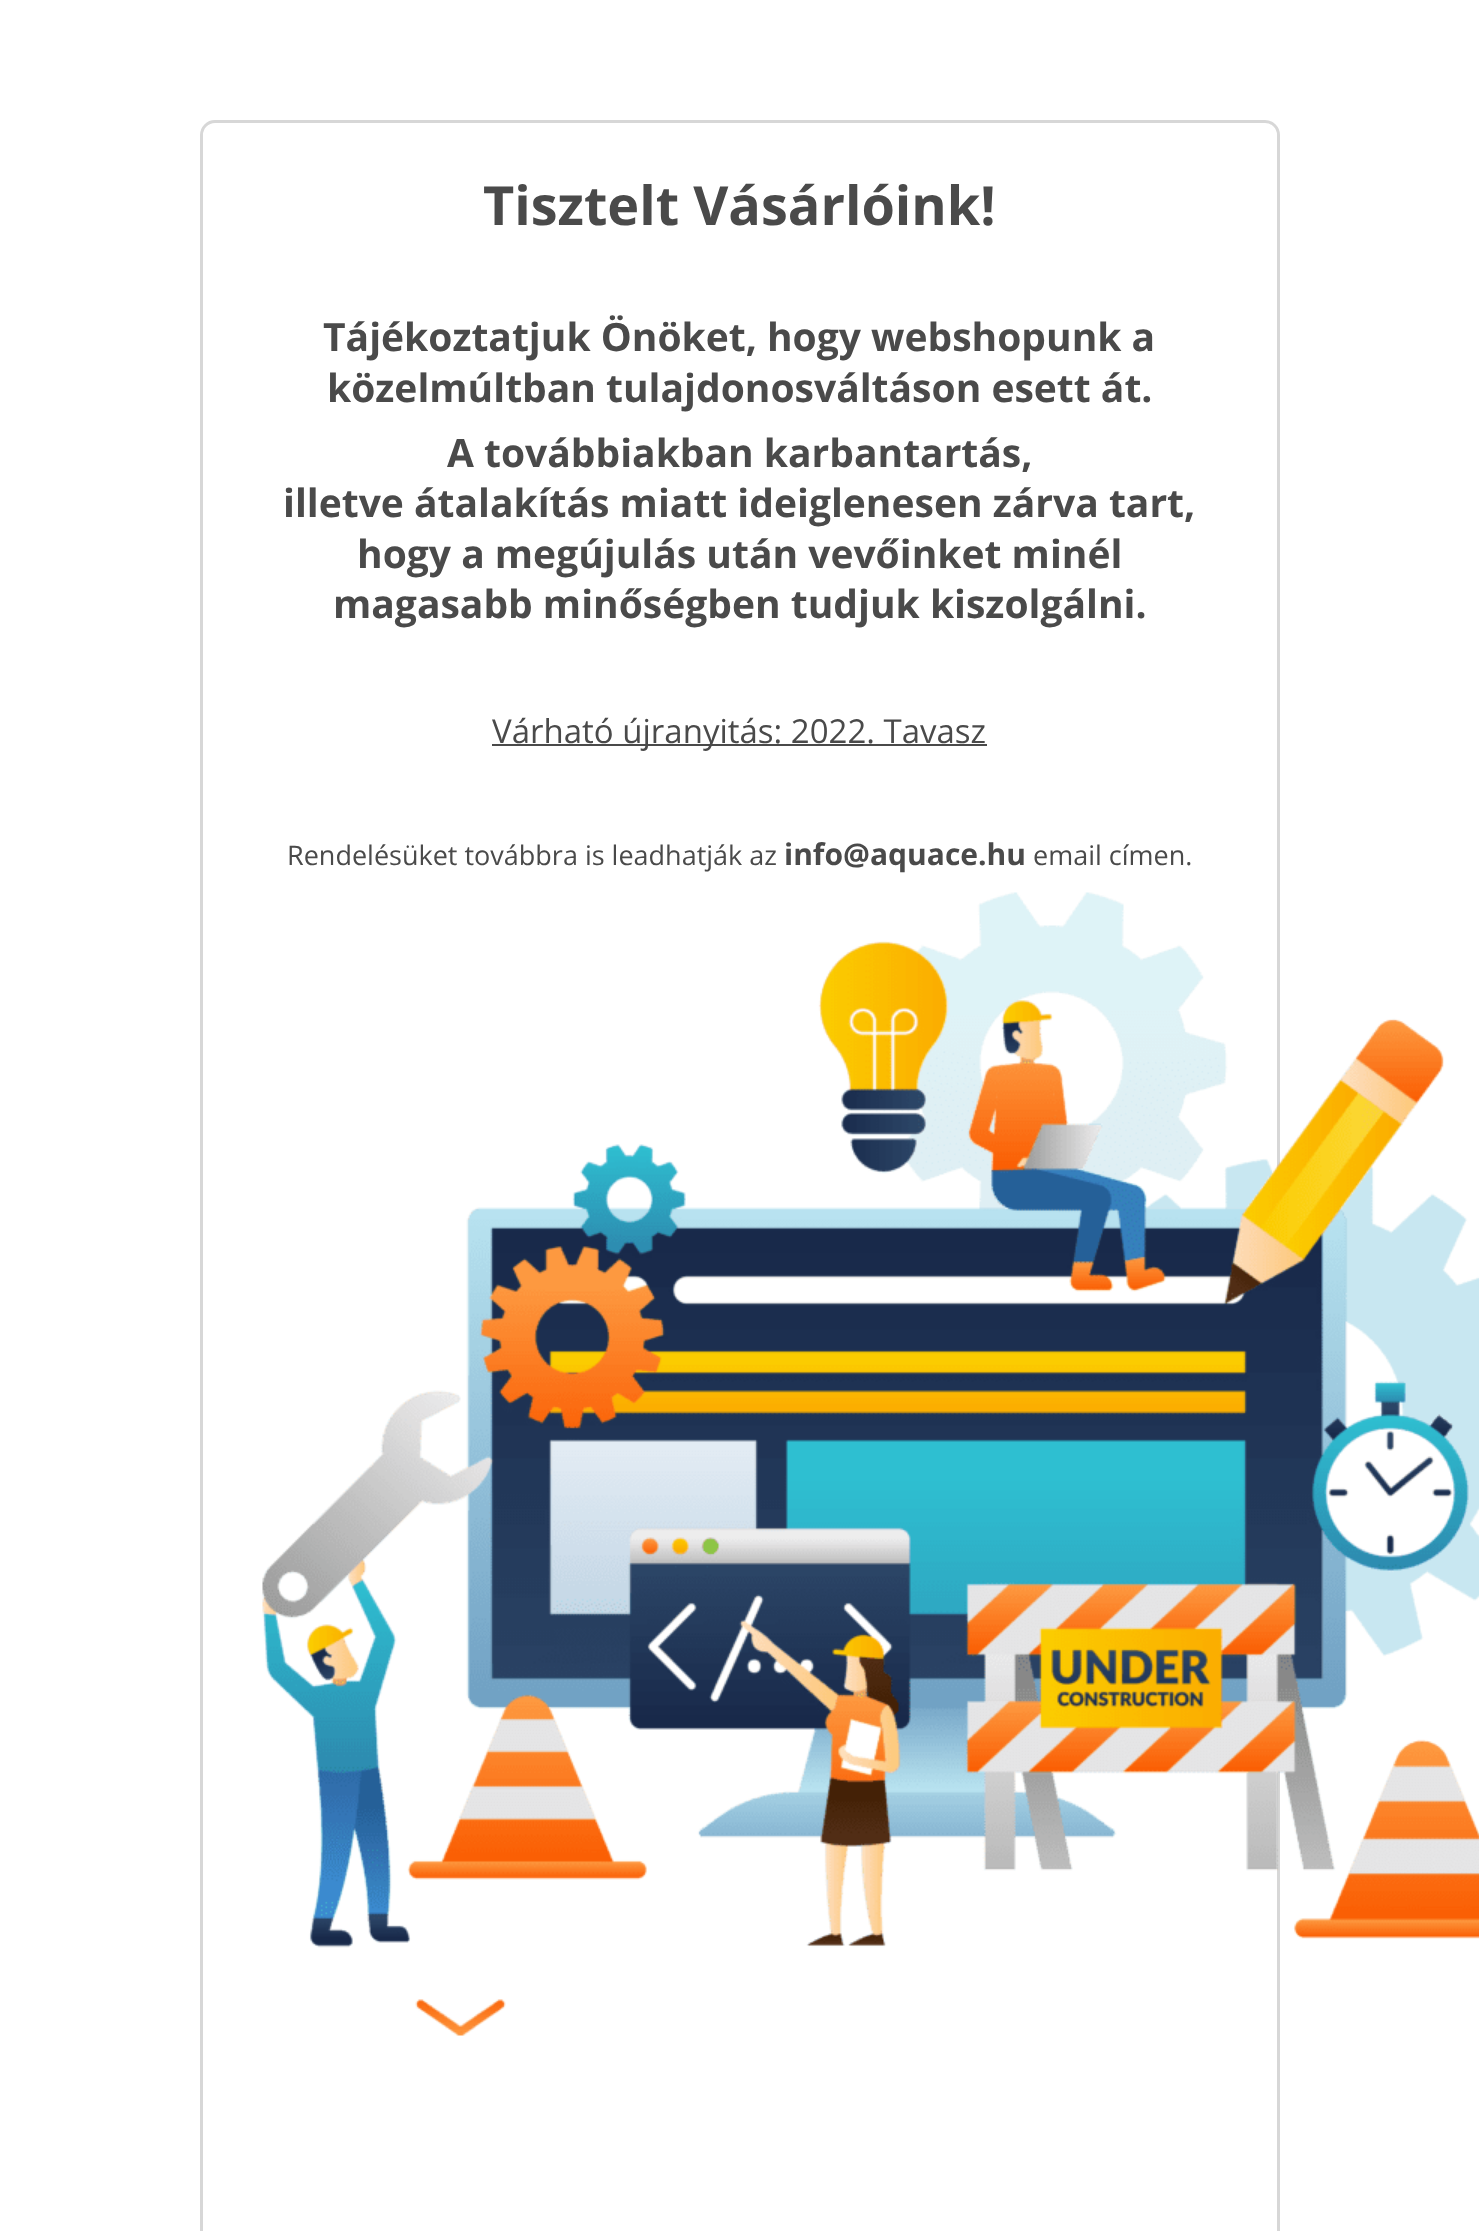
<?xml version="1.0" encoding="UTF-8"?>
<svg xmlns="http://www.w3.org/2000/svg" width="1479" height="2231">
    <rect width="100%" height="100%" fill="#FFFFFF"/>
    <rect x="201.5" y="121.5" width="1077" height="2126" rx="13.5" fill="none" stroke="#D7D7D7" stroke-width="3"/>
    <text x="483" y="225" font-family="Open Sans" font-size="54" font-weight="700" fill="#4A4A4A">Tisztelt Vásárlóink!</text>
    <text x="323" y="351" font-family="Open Sans" font-size="39" font-weight="700" fill="#4A4A4A">Tájékoztatjuk Önöket, hogy webshopunk a</text>
    <text x="327" y="402" font-family="Open Sans" font-size="39" font-weight="700" fill="#4A4A4A">közelmúltban tulajdonosváltáson esett át.</text>
    <text x="447" y="467" font-family="Open Sans" font-size="39" font-weight="700" fill="#4A4A4A">A továbbiakban karbantartás,</text>
    <text x="283" y="517" font-family="Open Sans" font-size="39" font-weight="700" fill="#4A4A4A">illetve átalakítás miatt ideiglenesen zárva tart,</text>
    <text x="357" y="568" font-family="Open Sans" font-size="39" font-weight="700" fill="#4A4A4A">hogy a megújulás után vevőinket minél</text>
    <text x="333" y="618" font-family="Open Sans" font-size="39" font-weight="700" fill="#4A4A4A">magasabb minőségben tudjuk kiszolgálni.</text>
    <rect x="492" y="744" width="495" height="2" fill="#4A4A4A"/>
    <text x="492" y="743" font-family="Open Sans" font-size="33" fill="#4A4A4A">Várható újranyitás: 2022. Tavasz</text>
    <text x="287" y="865" font-family="Open Sans" font-size="27" fill="#4A4A4A">Rendelésüket továbbra is leadhatják az</text>
    <text x="784" y="865" font-family="Open Sans" font-size="30" font-weight="700" fill="#4A4A4A">info@aquace.hu</text>
    <text x="1033" y="865" font-family="Open Sans" font-size="27" fill="#4A4A4A">email címen.</text>
    <image x="262" y="892" width="1217" height="1144" href="img_01.png"/>
</svg>
